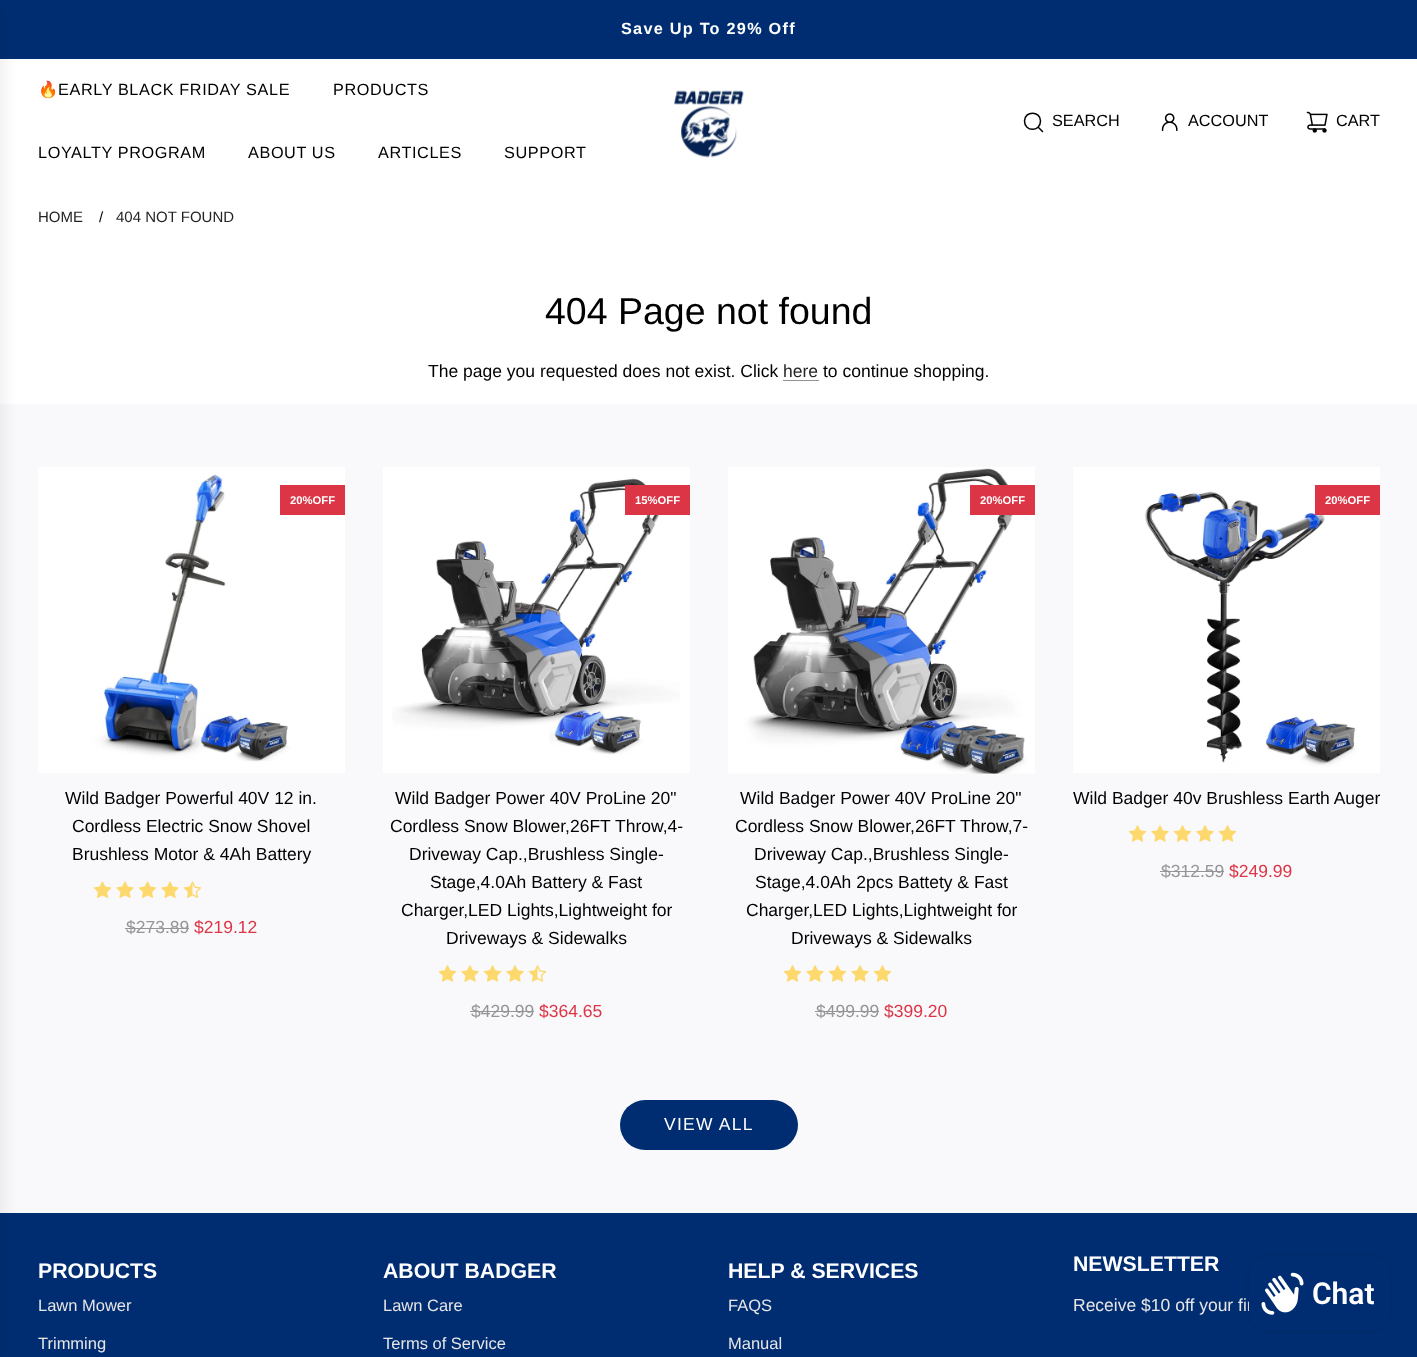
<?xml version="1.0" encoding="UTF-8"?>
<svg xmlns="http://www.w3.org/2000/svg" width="1417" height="1357">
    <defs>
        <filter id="blur1" x="-50%" y="-200%" width="200%" height="500%"><feGaussianBlur stdDeviation="9.5"/></filter>
        <filter id="blur2" x="-50%" y="-200%" width="200%" height="500%"><feGaussianBlur stdDeviation="3"/></filter>
    </defs>
    <rect width="100%" height="100%" fill="#FFFFFF"/>
    <rect x="0" y="0" width="1417" height="59" fill="#002D72"/>
    <text x="621" y="34" font-family="Liberation Sans" font-size="16.25" font-weight="700" letter-spacing="1.25" fill="#FFFFFF">Save Up To 29% Off</text>
    <rect x="0" y="404" width="1417" height="809" fill="#F9F9FB"/>
    <rect x="0" y="1213" width="1417" height="144" fill="#002D72"/>
    <rect x="-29" y="6" width="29" height="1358" fill="#000000" fill-opacity="0.1" filter="url(#blur1)"/>
    <text x="38" y="95" font-family="Noto Color Emoji" font-size="16.25" letter-spacing="0.6" fill="#000000">🔥</text>
    <text x="58" y="95" font-family="Liberation Sans" font-size="16.25" letter-spacing="0.6" fill="#000000">EARLY BLACK FRIDAY SALE</text>
    <text x="333" y="95" font-family="Liberation Sans" font-size="16.25" letter-spacing="0.6" fill="#000000">PRODUCTS</text>
    <text x="38" y="158" font-family="Liberation Sans" font-size="16.25" letter-spacing="0.6" fill="#000000">LOYALTY PROGRAM</text>
    <text x="248" y="158" font-family="Liberation Sans" font-size="16.25" letter-spacing="0.6" fill="#000000">ABOUT US</text>
    <text x="378" y="158" font-family="Liberation Sans" font-size="16.25" letter-spacing="0.6" fill="#000000">ARTICLES</text>
    <text x="504" y="158" font-family="Liberation Sans" font-size="16.25" letter-spacing="0.6" fill="#000000">SUPPORT</text>
    <image x="674" y="90" width="70" height="68" href="img_01.png"/>
    <path d="M 1038.5 127.5 L 1042.5 131.5 M 1024.5 121 C 1024.5 132 1040.5 132 1040.5 121 C 1040.5 110.5 1024.5 110.5 1024.5 121 Z" fill="none" stroke="#000000" stroke-width="1.5" stroke-linecap="round" stroke-linejoin="round"/>
    <text x="1052" y="126" font-family="Liberation Sans" font-size="16.25" fill="#000000">SEARCH</text>
    <image x="1161" y="113" width="17" height="19" href="img_02.png"/>
    <text x="1188" y="126" font-family="Liberation Sans" font-size="16.25" fill="#000000">ACCOUNT</text>
    <image x="1306" y="111" width="22" height="22" href="img_03.png"/>
    <text x="1336" y="126" font-family="Liberation Sans" font-size="16.25" fill="#000000">CART</text>
    <text x="38" y="222" font-family="Liberation Sans" font-size="15" fill="#242424">HOME</text>
    <text x="99" y="222" font-family="Liberation Sans" font-size="15" fill="#000000">/</text>
    <text x="116" y="222" font-family="Liberation Sans" font-size="15" fill="#242424">404 NOT FOUND</text>
    <text x="545" y="324" font-family="Liberation Sans" font-size="37.5" fill="#000000">404 Page not found</text>
    <text x="428" y="377" font-family="Liberation Sans" font-size="17.5" fill="#000000">The page you requested does not exist. Click</text>
    <text x="783" y="377" font-family="Liberation Sans" font-size="17.5" fill="#242424">here</text>
    <rect x="783" y="380" width="36" height="1" fill="#929292"/>
    <text x="823" y="377" font-family="Liberation Sans" font-size="17.5" fill="#000000">to continue shopping.</text>
    <image x="38" y="467" width="307" height="306" href="img_04.png"/>
    <rect x="280" y="485" width="65" height="30" fill="#DC3545"/>
    <text x="290" y="504" font-family="Liberation Sans" font-size="11.25" font-weight="700" fill="#FFFFFF">20%OFF</text>
    <text x="65" y="804" font-family="Liberation Sans" font-size="17.5" fill="#000000">Wild Badger Powerful 40V 12 in.</text>
    <text font-family="Liberation Sans" font-size="17.5" fill="#000000">
        <tspan x="72" y="832">Cordless Electric Snow Shovel</tspan>
        <tspan x="72" y="860">Brushless Motor &amp; 4Ah Battery</tspan>
    </text>
    <image x="93" y="881" width="19" height="17" href="img_05.png"/>
    <image x="116" y="881" width="18" height="17" href="img_06.png"/>
    <image x="138" y="881" width="19" height="17" href="img_05.png"/>
    <image x="161" y="881" width="18" height="17" href="img_06.png"/>
    <image x="183" y="881" width="19" height="17" href="img_07.png"/>
    <text x="126" y="933" font-family="Liberation Sans" font-size="17.5" fill="#959597">$273.89</text>
    <rect x="125" y="928" width="64" height="1" fill="#959597"/>
    <text x="194" y="933" font-family="Liberation Sans" font-size="17.5" fill="#DC3545">$219.12</text>
    <image x="383" y="467" width="307" height="306" href="img_08.png"/>
    <rect x="625" y="485" width="65" height="30" fill="#DC3545"/>
    <text x="635" y="504" font-family="Liberation Sans" font-size="11.25" font-weight="700" fill="#FFFFFF">15%OFF</text>
    <text x="395" y="804" font-family="Liberation Sans" font-size="17.5" fill="#000000">Wild Badger Power 40V ProLine 20"</text>
    <text x="390" y="832" font-family="Liberation Sans" font-size="17.5" fill="#000000">Cordless Snow Blower,26FT Throw,4-</text>
    <text x="409" y="860" font-family="Liberation Sans" font-size="17.5" fill="#000000">Driveway Cap.,Brushless Single-</text>
    <text x="430" y="888" font-family="Liberation Sans" font-size="17.5" fill="#000000">Stage,4.0Ah Battery &amp; Fast</text>
    <text x="401" y="916" font-family="Liberation Sans" font-size="17.5" fill="#000000">Charger,LED Lights,Lightweight for</text>
    <text x="446" y="944" font-family="Liberation Sans" font-size="17.5" fill="#000000">Driveways &amp; Sidewalks</text>
    <image x="438" y="965" width="19" height="17" href="img_09.png"/>
    <image x="461" y="965" width="18" height="17" href="img_10.png"/>
    <image x="483" y="965" width="19" height="17" href="img_09.png"/>
    <image x="506" y="965" width="18" height="17" href="img_10.png"/>
    <image x="528" y="965" width="19" height="17" href="img_11.png"/>
    <text x="471" y="1017" font-family="Liberation Sans" font-size="17.5" fill="#959597">$429.99</text>
    <rect x="470" y="1011" width="64" height="1" fill="#959597"/>
    <text x="539" y="1017" font-family="Liberation Sans" font-size="17.5" fill="#DC3545">$364.65</text>
    <image x="728" y="467" width="307" height="307" href="img_12.png"/>
    <rect x="970" y="485" width="65" height="30" fill="#DC3545"/>
    <text x="980" y="504" font-family="Liberation Sans" font-size="11.25" font-weight="700" fill="#FFFFFF">20%OFF</text>
    <text x="740" y="804" font-family="Liberation Sans" font-size="17.5" fill="#000000">Wild Badger Power 40V ProLine 20"</text>
    <text x="735" y="832" font-family="Liberation Sans" font-size="17.5" fill="#000000">Cordless Snow Blower,26FT Throw,7-</text>
    <text x="754" y="860" font-family="Liberation Sans" font-size="17.5" fill="#000000">Driveway Cap.,Brushless Single-</text>
    <text x="755" y="888" font-family="Liberation Sans" font-size="17.5" fill="#000000">Stage,4.0Ah 2pcs Battety &amp; Fast</text>
    <text x="746" y="916" font-family="Liberation Sans" font-size="17.5" fill="#000000">Charger,LED Lights,Lightweight for</text>
    <text x="791" y="944" font-family="Liberation Sans" font-size="17.5" fill="#000000">Driveways &amp; Sidewalks</text>
    <image x="783" y="965" width="19" height="17" href="img_09.png"/>
    <image x="806" y="965" width="18" height="17" href="img_10.png"/>
    <image x="828" y="965" width="19" height="17" href="img_09.png"/>
    <image x="851" y="965" width="18" height="17" href="img_10.png"/>
    <image x="873" y="965" width="19" height="17" href="img_09.png"/>
    <text x="816" y="1017" font-family="Liberation Sans" font-size="17.5" fill="#959597">$499.99</text>
    <rect x="815" y="1011" width="64" height="1" fill="#959597"/>
    <text x="884" y="1017" font-family="Liberation Sans" font-size="17.5" fill="#DC3545">$399.20</text>
    <image x="1073" y="467" width="307" height="306" href="img_13.png"/>
    <rect x="1315" y="485" width="65" height="30" fill="#DC3545"/>
    <text x="1325" y="504" font-family="Liberation Sans" font-size="11.25" font-weight="700" fill="#FFFFFF">20%OFF</text>
    <text x="1073" y="804" font-family="Liberation Sans" font-size="17.5" fill="#000000">Wild Badger 40v Brushless Earth Auger</text>
    <image x="1128" y="825" width="19" height="17" href="img_09.png"/>
    <image x="1151" y="825" width="18" height="17" href="img_10.png"/>
    <image x="1173" y="825" width="19" height="17" href="img_09.png"/>
    <image x="1196" y="825" width="18" height="17" href="img_10.png"/>
    <image x="1218" y="825" width="19" height="17" href="img_09.png"/>
    <text x="1161" y="877" font-family="Liberation Sans" font-size="17.5" fill="#959597">$312.59</text>
    <rect x="1160" y="871" width="64" height="1" fill="#959597"/>
    <text x="1229" y="877" font-family="Liberation Sans" font-size="17.5" fill="#DC3545">$249.99</text>
    <rect x="620" y="1100" width="178" height="50" rx="25" fill="#002D72"/>
    <text x="664" y="1130" font-family="Liberation Sans" font-size="17.5" letter-spacing="1.25" fill="#FFFFFF">VIEW ALL</text>
    <text x="38" y="1278" font-family="Liberation Sans" font-size="21.25" font-weight="700" fill="#FFFFFF">PRODUCTS</text>
    <text x="38" y="1311" font-family="Liberation Sans" font-size="16.5" fill="#E6E6E6">Lawn Mower</text>
    <text x="38" y="1349" font-family="Liberation Sans" font-size="16.5" fill="#E6E6E6">Trimming</text>
    <text x="383" y="1278" font-family="Liberation Sans" font-size="21.25" font-weight="700" fill="#FFFFFF">ABOUT BADGER</text>
    <text x="383" y="1311" font-family="Liberation Sans" font-size="16.5" fill="#E6E6E6">Lawn Care</text>
    <text x="383" y="1349" font-family="Liberation Sans" font-size="16.5" fill="#E6E6E6">Terms of Service</text>
    <text x="728" y="1278" font-family="Liberation Sans" font-size="21.25" font-weight="700" fill="#FFFFFF">HELP &amp; SERVICES</text>
    <text x="728" y="1311" font-family="Liberation Sans" font-size="16.5" fill="#E6E6E6">FAQS</text>
    <text x="728" y="1349" font-family="Liberation Sans" font-size="16.5" fill="#E6E6E6">Manual</text>
    <text x="1073" y="1271" font-family="Liberation Sans" font-size="21.25" font-weight="700" fill="#FFFFFF">NEWSLETTER</text>
    <text x="1073" y="1311" font-family="Liberation Sans" font-size="17.5" fill="#E6E6E6">Receive $10 off your fir</text>
    <rect x="1249" y="1256" width="141" height="75" rx="20" fill="#000000" fill-opacity="0.15" filter="url(#blur2)"/>
    <rect x="1249" y="1256" width="141" height="75" rx="20" fill="#002D72"/>
    <image x="1261" y="1272" width="43" height="43" href="img_14.png"/>
    <text x="1312" y="1304" font-family="Roboto" font-size="30" font-weight="600" fill="#FFFFFF">Chat</text>
</svg>
